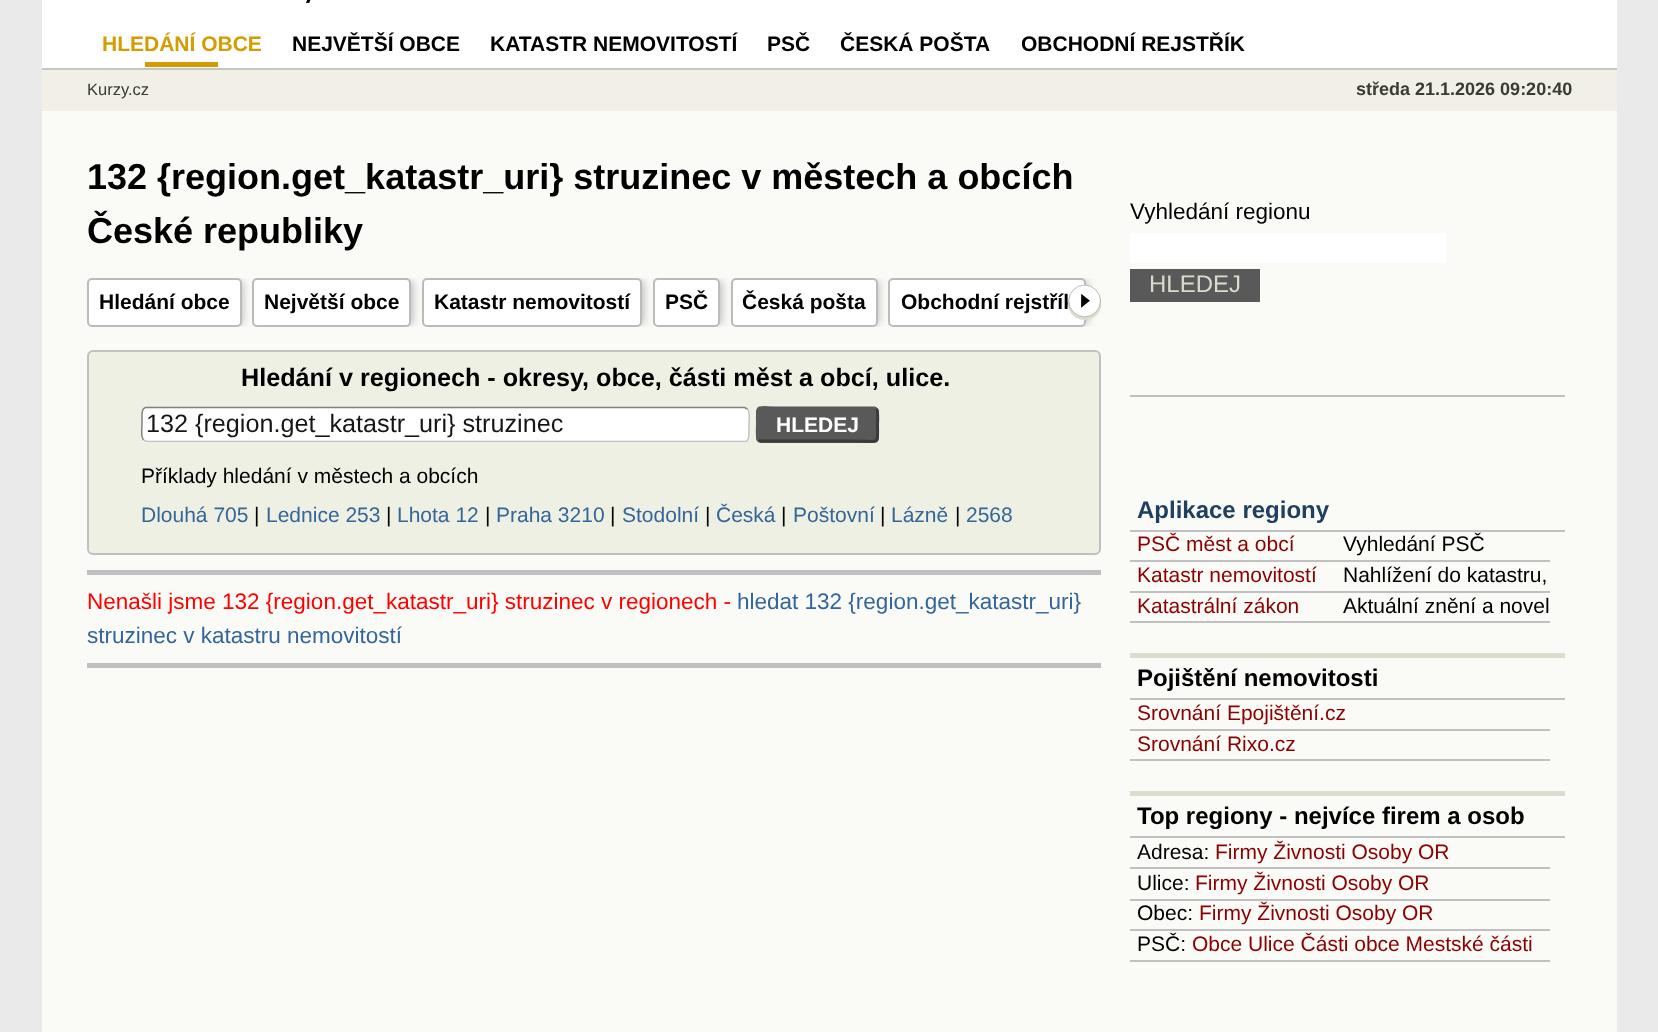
<?xml version="1.0" encoding="UTF-8"?>
<svg xmlns="http://www.w3.org/2000/svg" width="1658" height="1032">
    <defs>
        <clipPath id="clip1"><rect x="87" y="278" width="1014" height="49"/></clipPath>
        <filter id="blur1" x="-50%" y="-200%" width="200%" height="500%"><feGaussianBlur stdDeviation="4"/></filter>
    </defs>
    <rect width="100%" height="100%" fill="#EAEAEA"/>
    <rect x="42" y="111" width="1575" height="921" fill="#FAFBF7"/>
    <rect x="42" y="68" width="1575" height="2" fill="#C5C6BD"/>
    <rect x="42" y="0" width="1575" height="68" fill="#FFFFFF"/>
    <rect x="145" y="62" width="73" height="5" fill="#D49C01"/>
    <text x="102" y="51" font-family="Liberation Sans" font-size="21" font-weight="700" fill="#D49C01">HLEDÁNÍ OBCE</text>
    <text x="292" y="51" font-family="Liberation Sans" font-size="21" font-weight="700" fill="#000000">NEJVĚTŠÍ OBCE</text>
    <text x="490" y="51" font-family="Liberation Sans" font-size="21" font-weight="700" fill="#000000">KATASTR NEMOVITOSTÍ</text>
    <text x="767" y="51" font-family="Liberation Sans" font-size="21" font-weight="700" fill="#000000">PSČ</text>
    <text x="840" y="51" font-family="Liberation Sans" font-size="21" font-weight="700" fill="#000000">ČESKÁ POŠTA</text>
    <text x="1021" y="51" font-family="Liberation Sans" font-size="21" font-weight="700" fill="#000000">OBCHODNÍ REJSTŘÍK</text>
    <image x="306" y="0" width="5" height="3" href="img_01.png"/>
    <rect x="42" y="70" width="1575" height="41" fill="#F2EFE6"/>
    <text x="87" y="95" font-family="Liberation Sans" font-size="16.5" fill="#393C31">Kurzy.cz</text>
    <text x="1356" y="95" font-family="Liberation Sans" font-size="18" font-weight="700" fill="#393C31">středa 21.1.2026 09:20:40</text>
    <text font-family="Liberation Sans" font-size="36" font-weight="700" fill="#000000">
        <tspan x="87" y="189">132 {region.get_katastr_uri} struzinec v městech a obcích</tspan>
        <tspan x="87" y="243">České republiky</tspan>
    </text>
    <g clip-path="url(#clip1)">
        <rect x="95" y="281" width="148" height="43" rx="1.5" fill="#BBBBBB" filter="url(#blur1)"/>
    </g>
    <rect x="88" y="279" width="153" height="47" rx="4" fill="#FFFFFF" stroke="#BBBBBB" stroke-width="2"/>
    <text x="99" y="309" font-family="Liberation Sans" font-size="21" font-weight="700" fill="#000000">Hledání obce</text>
    <g clip-path="url(#clip1)">
        <rect x="260" y="281" width="153" height="43" rx="1.5" fill="#BBBBBB" filter="url(#blur1)"/>
    </g>
    <rect x="253" y="279" width="157" height="47" rx="4" fill="#FFFFFF" stroke="#BBBBBB" stroke-width="2"/>
    <text x="264" y="309" font-family="Liberation Sans" font-size="21" font-weight="700" fill="#000000">Největší obce</text>
    <g clip-path="url(#clip1)">
        <rect x="429" y="281" width="215" height="43" rx="1.5" fill="#BBBBBB" filter="url(#blur1)"/>
    </g>
    <rect x="423" y="279" width="218" height="47" rx="4" fill="#FFFFFF" stroke="#BBBBBB" stroke-width="2"/>
    <text x="434" y="309" font-family="Liberation Sans" font-size="21" font-weight="700" fill="#000000">Katastr nemovitostí</text>
    <g clip-path="url(#clip1)">
        <rect x="660" y="281" width="62" height="43" rx="1.5" fill="#BBBBBB" filter="url(#blur1)"/>
    </g>
    <rect x="654" y="279" width="65" height="47" rx="4" fill="#FFFFFF" stroke="#BBBBBB" stroke-width="2"/>
    <text x="665" y="309" font-family="Liberation Sans" font-size="21" font-weight="700" fill="#000000">PSČ</text>
    <g clip-path="url(#clip1)">
        <rect x="738" y="281" width="141" height="43" rx="1.5" fill="#BBBBBB" filter="url(#blur1)"/>
    </g>
    <rect x="732" y="279" width="145" height="47" rx="4" fill="#FFFFFF" stroke="#BBBBBB" stroke-width="2"/>
    <text x="742" y="309" font-family="Liberation Sans" font-size="21" font-weight="700" fill="#000000">Česká pošta</text>
    <g clip-path="url(#clip1)">
        <rect x="896" y="281" width="192" height="43" rx="1.5" fill="#BBBBBB" filter="url(#blur1)"/>
    </g>
    <rect x="889" y="279" width="196" height="47" rx="4" fill="#FFFFFF" stroke="#BBBBBB" stroke-width="2"/>
    <text x="901" y="309" font-family="Liberation Sans" font-size="21" font-weight="700" fill="#000000">Obchodní rejstřík</text>
    <image x="1067" y="285" width="34" height="35" href="img_02.png"/>
    <rect x="88" y="351" width="1012" height="203" rx="5" fill="#EEF0E3" stroke="#C0C0C0" stroke-width="2"/>
    <text x="241" y="386" font-family="Liberation Sans" font-size="25.2" font-weight="700" fill="#000000">Hledání v regionech - okresy, obce, části měst a obcí, ulice.</text>
    <rect x="141" y="407" width="609" height="36" rx="6" fill="#FFFFFF"/>
    <path d="M 747.5 409 C 750.5 412 749 421 749 424.5 V 432.5 C 749 436 749.5 440.5 745.5 441.5 H 146.5 L 143.5 440" fill="none" stroke="#C0C0C0" stroke-width="1.5"/>
    <path d="M 143.5 440 C 140.5 437 142 428 142 424.5 V 416.5 C 142 413 141.5 408.5 145.5 407.5 H 744.5 L 747.5 409" fill="none" stroke="#808080" stroke-width="1.5"/>
    <text x="146" y="432" font-family="Liberation Sans" font-size="25.2" fill="#161614">132 {region.get_katastr_uri} struzinec</text>
    <rect x="756" y="407" width="123" height="36" rx="5" fill="#595959"/>
    <path d="M 876.5 409 C 878.5 411 877.5 421.5 877.5 424.5 C 877.5 446 880.5 441 855.5 441 H 760.5 L 758.5 440" fill="none" stroke="#3B3B3B" stroke-width="3"/>
    <path d="M 758.5 440 C 756.5 438 757.5 427.5 757.5 424.5 C 757.5 403 754.5 408 779.5 408 H 874.5 L 876.5 409" fill="none" stroke="#595959" stroke-width="3"/>
    <text x="776" y="432" font-family="Liberation Sans" font-size="21" font-weight="700" fill="#FFFFFF">HLEDEJ</text>
    <text x="141" y="483" font-family="Liberation Sans" font-size="21" fill="#000000">Příklady hledání v městech a obcích</text>
    <text x="141" y="522" font-family="Liberation Sans" font-size="21" fill="#336699">Dlouhá 705</text>
    <text x="254" y="522" font-family="Liberation Sans" font-size="21" fill="#000000">|</text>
    <text x="266" y="522" font-family="Liberation Sans" font-size="21" fill="#336699">Lednice 253</text>
    <text x="386" y="522" font-family="Liberation Sans" font-size="21" fill="#000000">|</text>
    <text x="397" y="522" font-family="Liberation Sans" font-size="21" fill="#336699">Lhota 12</text>
    <text x="485" y="522" font-family="Liberation Sans" font-size="21" fill="#000000">|</text>
    <text x="496" y="522" font-family="Liberation Sans" font-size="21" fill="#336699">Praha 3210</text>
    <text x="610" y="522" font-family="Liberation Sans" font-size="21" fill="#000000">|</text>
    <text x="622" y="522" font-family="Liberation Sans" font-size="21" fill="#336699">Stodolní</text>
    <text x="705" y="522" font-family="Liberation Sans" font-size="21" fill="#000000">|</text>
    <text x="716" y="522" font-family="Liberation Sans" font-size="21" fill="#336699">Česká</text>
    <text x="781" y="522" font-family="Liberation Sans" font-size="21" fill="#000000">|</text>
    <text x="793" y="522" font-family="Liberation Sans" font-size="21" fill="#336699">Poštovní</text>
    <text x="880" y="522" font-family="Liberation Sans" font-size="21" fill="#000000">|</text>
    <text x="891" y="522" font-family="Liberation Sans" font-size="21" fill="#336699">Lázně</text>
    <text x="955" y="522" font-family="Liberation Sans" font-size="21" fill="#000000">|</text>
    <text x="966" y="522" font-family="Liberation Sans" font-size="21" fill="#336699">2568</text>
    <rect x="87" y="570" width="1014" height="5" fill="#C0C0C0"/>
    <text x="87" y="609" font-family="Liberation Sans" font-size="22.5" fill="#FF0000">Nenašli jsme 132 {region.get_katastr_uri} struzinec v regionech -</text>
    <text x="737" y="609" font-family="Liberation Sans" font-size="22.5" fill="#336699">hledat 132 {region.get_katastr_uri}</text>
    <text x="87" y="643" font-family="Liberation Sans" font-size="22.5" fill="#336699">struzinec v katastru nemovitostí</text>
    <rect x="87" y="663" width="1014" height="5" fill="#C0C0C0"/>
    <text x="1130" y="219" font-family="Liberation Sans" font-size="22.5" fill="#000000">Vyhledání regionu</text>
    <rect x="1130" y="233" width="316" height="30" fill="#FFFFFF"/>
    <rect x="1130" y="269" width="130" height="33" fill="#595959"/>
    <text x="1149" y="292" font-family="Liberation Sans" font-size="24" fill="#D9DCCC">HLEDEJ</text>
    <rect x="1130" y="395" width="435" height="2" fill="#C0C0C0"/>
    <rect x="1130" y="530" width="435" height="2" fill="#C0C0C0"/>
    <text x="1137" y="518" font-family="Liberation Sans" font-size="24" font-weight="700" fill="#204060">Aplikace regiony</text>
    <rect x="1130" y="560" width="420" height="2" fill="#C0C0C0"/>
    <text x="1137" y="551" font-family="Liberation Sans" font-size="21" fill="#8B0000">PSČ měst a obcí</text>
    <text x="1343" y="551" font-family="Liberation Sans" font-size="21" fill="#000000">Vyhledání PSČ</text>
    <rect x="1130" y="591" width="420" height="2" fill="#C0C0C0"/>
    <text x="1137" y="582" font-family="Liberation Sans" font-size="21" fill="#8B0000">Katastr nemovitostí</text>
    <text x="1343" y="582" font-family="Liberation Sans" font-size="21" fill="#000000">Nahlížení do katastru,</text>
    <rect x="1130" y="621" width="420" height="2" fill="#C0C0C0"/>
    <text x="1137" y="613" font-family="Liberation Sans" font-size="21" fill="#8B0000">Katastrální zákon</text>
    <text x="1343" y="613" font-family="Liberation Sans" font-size="21" fill="#000000">Aktuální znění a novel</text>
    <rect x="1130" y="653" width="435" height="5" fill="#DBDDCE"/>
    <rect x="1130" y="698" width="435" height="2" fill="#C0C0C0"/>
    <text x="1137" y="686" font-family="Liberation Sans" font-size="24" font-weight="700" fill="#000000">Pojištění nemovitosti</text>
    <rect x="1130" y="729" width="420" height="2" fill="#C0C0C0"/>
    <text x="1137" y="720" font-family="Liberation Sans" font-size="21" fill="#8B0000">Srovnání Epojištění.cz</text>
    <rect x="1130" y="759" width="420" height="2" fill="#C0C0C0"/>
    <text x="1137" y="751" font-family="Liberation Sans" font-size="21" fill="#8B0000">Srovnání Rixo.cz</text>
    <rect x="1130" y="791" width="435" height="5" fill="#DBDDCE"/>
    <rect x="1130" y="836" width="435" height="2" fill="#C0C0C0"/>
    <text x="1137" y="824" font-family="Liberation Sans" font-size="24" font-weight="700" fill="#000000">Top regiony - nejvíce firem a osob</text>
    <rect x="1130" y="867" width="420" height="2" fill="#C0C0C0"/>
    <text x="1137" y="859" font-family="Liberation Sans" font-size="21" fill="#000000">Adresa:</text>
    <text x="1215" y="859" font-family="Liberation Sans" font-size="21" fill="#8B0000">Firmy Živnosti Osoby OR</text>
    <rect x="1130" y="899" width="420" height="2" fill="#C0C0C0"/>
    <text x="1137" y="890" font-family="Liberation Sans" font-size="21" fill="#000000">Ulice:</text>
    <text x="1195" y="890" font-family="Liberation Sans" font-size="21" fill="#8B0000">Firmy Živnosti Osoby OR</text>
    <rect x="1130" y="929" width="420" height="2" fill="#C0C0C0"/>
    <text x="1137" y="920" font-family="Liberation Sans" font-size="21" fill="#000000">Obec:</text>
    <text x="1199" y="920" font-family="Liberation Sans" font-size="21" fill="#8B0000">Firmy Živnosti Osoby OR</text>
    <rect x="1130" y="960" width="420" height="2" fill="#C0C0C0"/>
    <text x="1137" y="951" font-family="Liberation Sans" font-size="21" fill="#000000">PSČ:</text>
    <text x="1192" y="951" font-family="Liberation Sans" font-size="21" fill="#8B0000">Obce Ulice Části obce Mestské části</text>
</svg>
